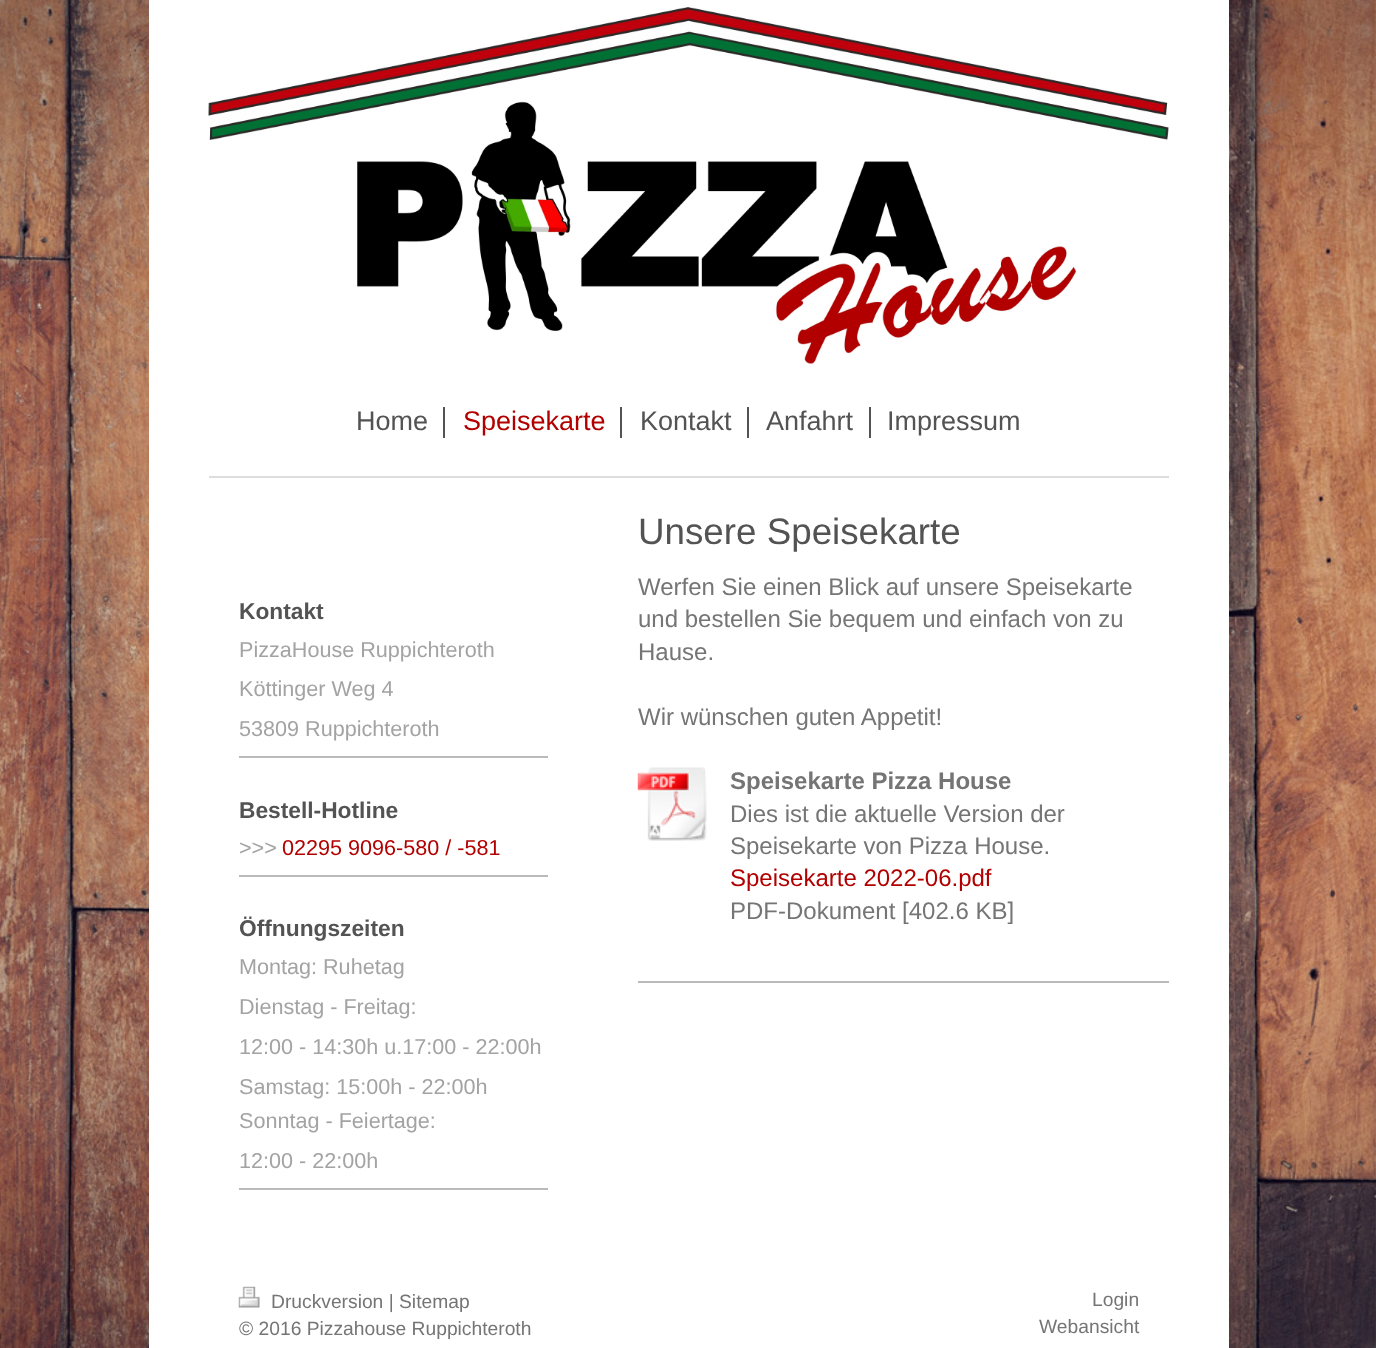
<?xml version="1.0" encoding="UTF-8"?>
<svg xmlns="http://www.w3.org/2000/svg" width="1376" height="1348">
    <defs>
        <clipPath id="clip1"><rect x="239" y="1287" width="900" height="56"/></clipPath>
    </defs>
    <rect width="100%" height="100%" fill="#FFFFFF"/>
    <image x="0" y="0" width="1376" height="1348" href="img_01.png"/>
    <rect x="149" y="0" width="1080" height="1348" fill="#FFFFFF"/>
    <image x="208" y="7" width="961" height="357" href="img_02.png"/>
    <rect x="209" y="476" width="960" height="2" fill="#DDDDDD"/>
    <rect x="443" y="407" width="2" height="31" fill="#535353"/>
    <text x="356" y="430" font-family="Liberation Sans" font-size="27" fill="#535353">Home</text>
    <rect x="620" y="407" width="2" height="31" fill="#535353"/>
    <text x="463" y="430" font-family="Liberation Sans" font-size="27" fill="#B20000">Speisekarte</text>
    <rect x="747" y="407" width="2" height="31" fill="#535353"/>
    <text x="640" y="430" font-family="Liberation Sans" font-size="27" fill="#535353">Kontakt</text>
    <rect x="869" y="407" width="2" height="31" fill="#535353"/>
    <text x="766" y="430" font-family="Liberation Sans" font-size="27" fill="#535353">Anfahrt</text>
    <text x="887" y="430" font-family="Liberation Sans" font-size="27" fill="#535353">Impressum</text>
    <text x="239" y="619" font-family="Liberation Sans" font-size="22.75" font-weight="700" fill="#535353">Kontakt</text>
    <text font-family="Liberation Sans" font-size="21.6" fill="#A3A3A3">
        <tspan x="239" y="657">PizzaHouse Ruppichteroth</tspan>
        <tspan x="239" y="696">Köttinger Weg 4</tspan>
        <tspan x="239" y="736">53809 Ruppichteroth</tspan>
    </text>
    <rect x="239" y="756" width="309" height="2" fill="#BABABA"/>
    <text x="239" y="818" font-family="Liberation Sans" font-size="22.75" font-weight="700" fill="#535353">Bestell-Hotline</text>
    <text x="239" y="855" font-family="Liberation Sans" font-size="21.6" fill="#A3A3A3">&gt;&gt;&gt;</text>
    <text x="282" y="855" font-family="Liberation Sans" font-size="21.6" fill="#B20000">02295 9096-580 / -581</text>
    <rect x="239" y="875" width="309" height="2" fill="#BABABA"/>
    <text x="239" y="936" font-family="Liberation Sans" font-size="22.75" font-weight="700" fill="#535353">Öffnungszeiten</text>
    <text font-family="Liberation Sans" font-size="21.6" fill="#A3A3A3">
        <tspan x="239" y="974">Montag: Ruhetag</tspan>
        <tspan x="239" y="1014">Dienstag - Freitag:</tspan>
        <tspan x="239" y="1054">12:00 - 14:30h u.17:00 - 22:00h</tspan>
        <tspan x="239" y="1094">Samstag: 15:00h - 22:00h</tspan>
        <tspan x="239" y="1128">Sonntag - Feiertage:</tspan>
        <tspan x="239" y="1168">12:00 - 22:00h</tspan>
    </text>
    <rect x="239" y="1188" width="309" height="2" fill="#BABABA"/>
    <text x="638" y="544" font-family="Liberation Sans" font-size="36.75" fill="#535353">Unsere Speisekarte</text>
    <text font-family="Liberation Sans" font-size="24" fill="#757575">
        <tspan x="638" y="595">Werfen Sie einen Blick auf unsere Speisekarte</tspan>
        <tspan x="638" y="627">und bestellen Sie bequem und einfach von zu</tspan>
        <tspan x="638" y="660">Hause.</tspan>
    </text>
    <text x="638" y="725" font-family="Liberation Sans" font-size="24" fill="#757575">Wir wünschen guten Appetit!</text>
    <image x="637" y="767" width="70" height="74" href="img_03.png"/>
    <text x="730" y="789" font-family="Liberation Sans" font-size="24" font-weight="700" fill="#757575">Speisekarte Pizza House</text>
    <text font-family="Liberation Sans" font-size="24" fill="#757575">
        <tspan x="730" y="822">Dies ist die aktuelle Version der</tspan>
        <tspan x="730" y="854">Speisekarte von Pizza House.</tspan>
    </text>
    <text x="730" y="886" font-family="Liberation Sans" font-size="24" fill="#B20000">Speisekarte 2022-06.pdf</text>
    <text x="730" y="919" font-family="Liberation Sans" font-size="24" fill="#757575">PDF-Dokument [402.6 KB]</text>
    <rect x="638" y="981" width="531" height="2" fill="#BABABA"/>
    <image x="238" y="1286" width="22" height="22" href="img_04.png"/>
    <text x="271" y="1308" font-family="Liberation Sans" font-size="19.25" fill="#757575">Druckversion | Sitemap</text>
    <g clip-path="url(#clip1)">
        <text x="239" y="1335" font-family="Liberation Sans" font-size="19.25" fill="#757575">© 2016 Pizzahouse Ruppichteroth</text>
    </g>
    <text x="1092" y="1306" font-family="Liberation Sans" font-size="19.25" fill="#757575">Login</text>
    <text x="1039" y="1333" font-family="Liberation Sans" font-size="19.25" fill="#757575">Webansicht</text>
</svg>
